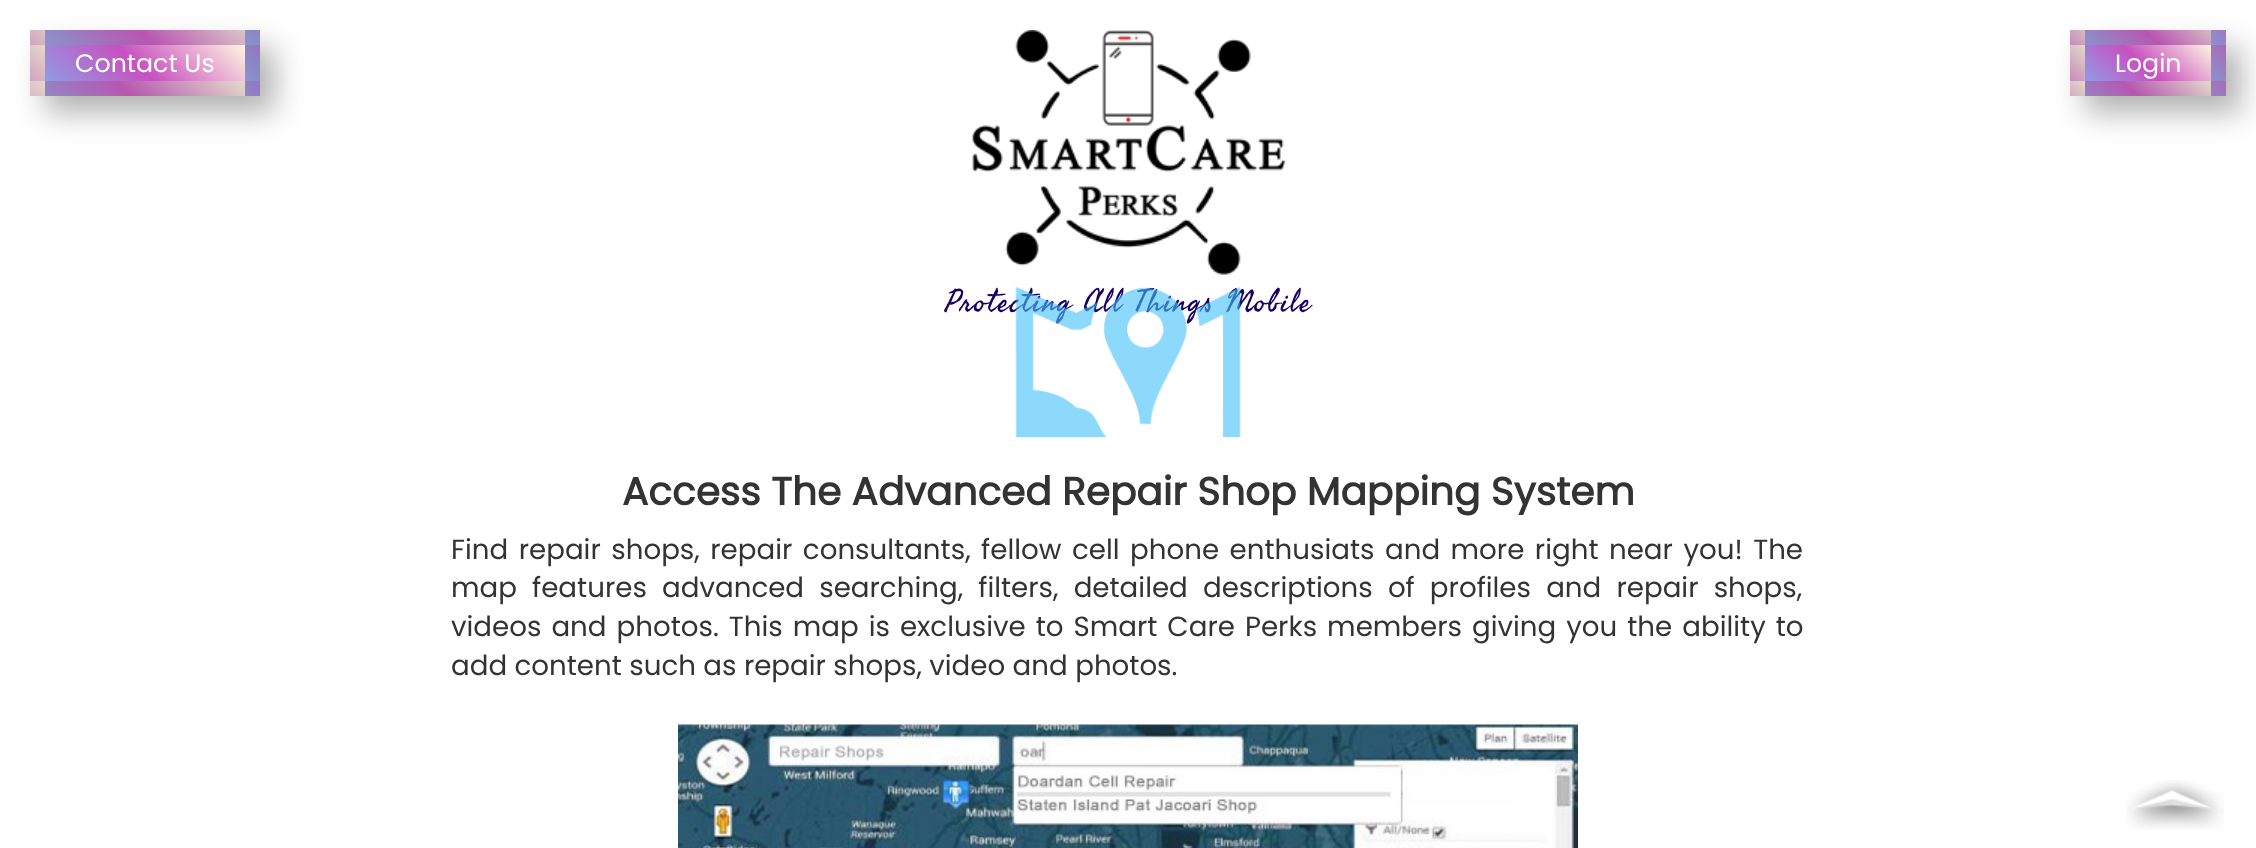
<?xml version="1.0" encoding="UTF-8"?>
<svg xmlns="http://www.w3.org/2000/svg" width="2256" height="848">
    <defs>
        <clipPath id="clip1"><path d="M 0 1 H 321 V 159 H 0 Z M 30 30 H 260 V 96 H 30 Z" clip-rule="evenodd"/></clipPath>
        <filter id="blur1" x="-50%" y="-200%" width="200%" height="500%"><feGaussianBlur stdDeviation="15"/></filter>
        <linearGradient id="g1" gradientUnits="userSpaceOnUse" x1="-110" y1="86" x2="0.6" y2="-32"><stop offset="0" stop-color="#8F9CE3"/><stop offset="0.46" stop-color="#C850C0"/><stop offset="1" stop-color="#FFF4E1"/></linearGradient>
        <linearGradient id="g2" gradientUnits="userSpaceOnUse" x1="89" y1="86" x2="200" y2="-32"><stop offset="0" stop-color="#8F9CE3"/><stop offset="0.46" stop-color="#C850C0"/><stop offset="1" stop-color="#FFF4E1"/></linearGradient>
        <linearGradient id="g3" gradientUnits="userSpaceOnUse" x1="289" y1="86" x2="400" y2="-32"><stop offset="0" stop-color="#4158D0" stop-opacity="0.59"/><stop offset="0.46" stop-color="#C850C0"/><stop offset="1" stop-color="#FFCC70" stop-opacity="0.21"/></linearGradient>
        <linearGradient id="g4" gradientUnits="userSpaceOnUse" x1="-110" y1="122" x2="0.6" y2="3.6"><stop offset="0" stop-color="#8F9CE3"/><stop offset="0.46" stop-color="#C850C0"/><stop offset="1" stop-color="#FFF4E1"/></linearGradient>
        <linearGradient id="g5" gradientUnits="userSpaceOnUse" x1="89" y1="122" x2="200" y2="3.6"><stop offset="0" stop-color="#8F9CE3"/><stop offset="0.46" stop-color="#C850C0"/><stop offset="1" stop-color="#FFF4E1"/></linearGradient>
        <linearGradient id="g6" gradientUnits="userSpaceOnUse" x1="289" y1="122" x2="400" y2="3.6"><stop offset="0" stop-color="#4158D0" stop-opacity="0.59"/><stop offset="0.46" stop-color="#C850C0"/><stop offset="1" stop-color="#FFCC70" stop-opacity="0.21"/></linearGradient>
        <linearGradient id="g7" gradientUnits="userSpaceOnUse" x1="-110" y1="158" x2="0.6" y2="40"><stop offset="0" stop-color="#8F9CE3"/><stop offset="0.46" stop-color="#C850C0"/><stop offset="1" stop-color="#FFF4E1"/></linearGradient>
        <linearGradient id="g8" gradientUnits="userSpaceOnUse" x1="89" y1="158" x2="200" y2="40"><stop offset="0" stop-color="#8F9CE3"/><stop offset="0.46" stop-color="#C850C0"/><stop offset="1" stop-color="#FFF4E1"/></linearGradient>
        <linearGradient id="g9" gradientUnits="userSpaceOnUse" x1="289" y1="158" x2="400" y2="40"><stop offset="0" stop-color="#4158D0" stop-opacity="0.59"/><stop offset="0.46" stop-color="#C850C0"/><stop offset="1" stop-color="#FFCC70" stop-opacity="0.21"/></linearGradient>
        <linearGradient id="g10" gradientUnits="userSpaceOnUse" x1="1984" y1="68" x2="2060" y2="-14"><stop offset="0" stop-color="#8F9CE3"/><stop offset="0.46" stop-color="#C850C0"/><stop offset="1" stop-color="#FFF4E1"/></linearGradient>
        <linearGradient id="g11" gradientUnits="userSpaceOnUse" x1="2110" y1="68" x2="2186" y2="-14"><stop offset="0" stop-color="#8F9CE3"/><stop offset="0.46" stop-color="#C850C0"/><stop offset="1" stop-color="#FFF4E1"/></linearGradient>
        <linearGradient id="g12" gradientUnits="userSpaceOnUse" x1="2236" y1="68" x2="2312" y2="-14"><stop offset="0" stop-color="#8F9CE3"/><stop offset="0.46" stop-color="#C850C0"/><stop offset="1" stop-color="#FFF4E1"/></linearGradient>
        <linearGradient id="g13" gradientUnits="userSpaceOnUse" x1="1984" y1="104" x2="2060" y2="22"><stop offset="0" stop-color="#8F9CE3"/><stop offset="0.46" stop-color="#C850C0"/><stop offset="1" stop-color="#FFF4E1"/></linearGradient>
        <linearGradient id="g14" gradientUnits="userSpaceOnUse" x1="2110" y1="104" x2="2186" y2="22"><stop offset="0" stop-color="#8F9CE3"/><stop offset="0.46" stop-color="#C850C0"/><stop offset="1" stop-color="#FFF4E1"/></linearGradient>
        <linearGradient id="g15" gradientUnits="userSpaceOnUse" x1="2236" y1="104" x2="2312" y2="22"><stop offset="0" stop-color="#8F9CE3"/><stop offset="0.46" stop-color="#C850C0"/><stop offset="1" stop-color="#FFF4E1"/></linearGradient>
        <linearGradient id="g16" gradientUnits="userSpaceOnUse" x1="1984" y1="140" x2="2060" y2="58"><stop offset="0" stop-color="#8F9CE3"/><stop offset="0.46" stop-color="#C850C0"/><stop offset="1" stop-color="#FFF4E1"/></linearGradient>
        <linearGradient id="g17" gradientUnits="userSpaceOnUse" x1="2110" y1="140" x2="2186" y2="58"><stop offset="0" stop-color="#8F9CE3"/><stop offset="0.46" stop-color="#C850C0"/><stop offset="1" stop-color="#FFF4E1"/></linearGradient>
        <linearGradient id="g18" gradientUnits="userSpaceOnUse" x1="2236" y1="140" x2="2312" y2="58"><stop offset="0" stop-color="#8F9CE3"/><stop offset="0.46" stop-color="#C850C0"/><stop offset="1" stop-color="#FFF4E1"/></linearGradient>
    </defs>
    <rect width="100%" height="100%" fill="#FFFFFF"/>
    <g clip-path="url(#clip1)">
        <rect x="45" y="47" width="230" height="66" fill="#000000" fill-opacity="0.3" filter="url(#blur1)"/>
    </g>
    <rect x="30" y="30" width="15" height="15" fill="url(#g1)"/>
    <rect x="45" y="30" width="200" height="15" fill="url(#g2)"/>
    <rect x="245" y="30" width="15" height="15" fill="url(#g3)"/>
    <rect x="30" y="45" width="15" height="36" fill="url(#g4)"/>
    <rect x="45" y="45" width="200" height="36" fill="url(#g5)"/>
    <rect x="245" y="45" width="15" height="36" fill="url(#g6)"/>
    <rect x="30" y="81" width="15" height="15" fill="url(#g7)"/>
    <rect x="45" y="81" width="200" height="15" fill="url(#g8)"/>
    <rect x="245" y="81" width="15" height="15" fill="url(#g9)"/>
    <rect x="37.5" y="37.5" width="215" height="51" fill="none" stroke="#737373" stroke-opacity="0.2" stroke-width="15"/>
    <text x="75" y="72" font-family="Poppins" font-size="25.25" fill="#FFFFFF">Contact Us</text>
    <rect x="2085" y="47" width="156" height="66" fill="#000000" fill-opacity="0.3" filter="url(#blur1)"/>
    <rect x="2070" y="30" width="15" height="15" fill="url(#g10)"/>
    <rect x="2085" y="30" width="126" height="15" fill="url(#g11)"/>
    <rect x="2211" y="30" width="15" height="15" fill="url(#g12)"/>
    <rect x="2070" y="45" width="15" height="36" fill="url(#g13)"/>
    <rect x="2085" y="45" width="126" height="36" fill="url(#g14)"/>
    <rect x="2211" y="45" width="15" height="36" fill="url(#g15)"/>
    <rect x="2070" y="81" width="15" height="15" fill="url(#g16)"/>
    <rect x="2085" y="81" width="126" height="15" fill="url(#g17)"/>
    <rect x="2211" y="81" width="15" height="15" fill="url(#g18)"/>
    <rect x="2077.5" y="37.5" width="141" height="51" fill="none" stroke="#737373" stroke-opacity="0.2" stroke-width="15"/>
    <text x="2115" y="72" font-family="Poppins" font-size="25.25" fill="#FFFFFF">Login</text>
    <image x="972" y="30" width="314" height="245" href="img_01.png"/>
    <text x="945" y="311" font-family="Seaweed Script" font-size="31.5" letter-spacing="1.5" fill="#190061">Protecting All Things Mobile</text>
    <image x="1015" y="286" width="226" height="151" href="img_02.png"/>
    <text x="622" y="505" font-family="Poppins" font-size="39" font-weight="700" fill="#333333">Access The Advanced Repair Shop Mapping System</text>
    <text font-family="Poppins" font-size="27.7" fill="#333333">
        <tspan x="451" y="559" word-spacing="3.1">Find repair shops, repair consultants, fellow cell phone enthusiats and more right near you! The</tspan>
        <tspan x="451" y="597" word-spacing="7.75">map features advanced searching, filters, detailed descriptions of profiles and repair shops,</tspan>
        <tspan x="451" y="636" word-spacing="2.6">videos and photos. This map is exclusive to Smart Care Perks members giving you the ability to</tspan>
        <tspan x="451" y="675">add content such as repair shops, video and photos.</tspan>
    </text>
    <image x="678" y="724" width="900" height="124" href="img_03.png"/>
    <image x="2126" y="780" width="98" height="50" href="img_04.png"/>
</svg>
